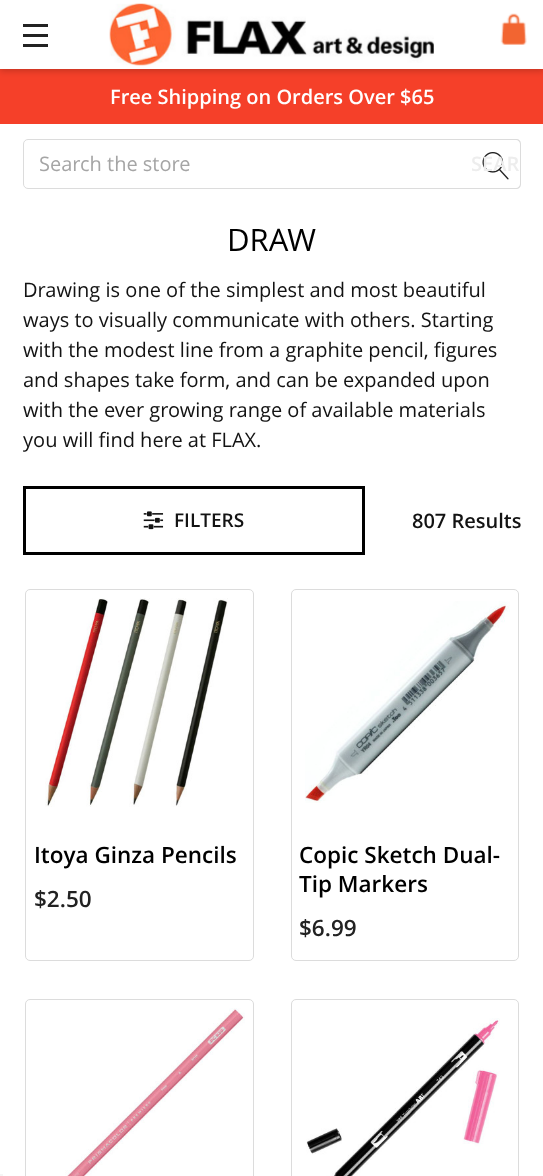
<?xml version="1.0" encoding="UTF-8"?>
<svg xmlns="http://www.w3.org/2000/svg" width="543" height="1176">
    <defs>
        <filter id="blur1" x="-50%" y="-200%" width="200%" height="500%"><feGaussianBlur stdDeviation="3"/></filter>
    </defs>
    <rect width="100%" height="100%" fill="#FFFFFF"/>
    <rect x="0" y="69" width="543" height="55" fill="#F54029"/>
    <rect x="0" y="3" width="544" height="68" fill="#000000" fill-opacity="0.2" filter="url(#blur1)"/>
    <rect x="0" y="0" width="543" height="69" fill="#FFFFFF"/>
    <rect x="23" y="34" width="25" height="3" fill="#222222"/>
    <rect x="23" y="24" width="25" height="3" fill="#222222"/>
    <rect x="23" y="44" width="25" height="3" fill="#222222"/>
    <image x="109" y="3" width="325" height="63" href="img_01.png"/>
    <image x="500" y="13" width="27" height="32" href="img_02.png"/>
    <text x="110" y="104" font-family="Open Sans" font-size="20" font-weight="600" fill="#FFFFFF">Free Shipping on Orders Over $65</text>
    <rect x="23.5" y="139.5" width="497" height="49" rx="4.5" fill="none" stroke="#DCDCDC"/>
    <path d="M 471 139 H 516 C 519 139 521 141 521 144 V 184 C 521 187 519 189 516 189 H 471 Z" fill="#FFFFFF"/>
    <path d="M 471 139 H 516 C 519 139 521 141 521 144 V 184 C 521 187 519 189 516 189 H 471 Z M 471 140 H 516 C 518 140 520 142 520 144 V 184 C 520 186 518 188 516 188 H 471 Z" fill="#DCDCDC" fill-rule="evenodd"/>
    <image x="482" y="152" width="27" height="28" href="img_03.png"/>
    <text x="39" y="171" font-family="Open Sans" font-size="20" fill="#A5A5A5">Search the store</text>
    <text x="471" y="171" font-family="Open Sans" font-size="20" font-weight="600" fill="#EDEDED">SEAR</text>
    <text x="227" y="251" font-family="Open Sans" font-size="31" fill="#000000">DRAW</text>
    <text font-family="Open Sans" font-size="20" fill="#131313">
        <tspan x="23" y="297">Drawing is one of the simplest and most beautiful</tspan>
        <tspan x="23" y="327">ways to visually communicate with others. Starting</tspan>
        <tspan x="23" y="357">with the modest line from a graphite pencil, figures</tspan>
        <tspan x="23" y="387">and shapes take form, and can be expanded upon</tspan>
        <tspan x="23" y="417">with the ever growing range of available materials</tspan>
        <tspan x="23" y="447">you will find here at FLAX.</tspan>
    </text>
    <rect x="24.5" y="487.5" width="339" height="66" fill="none" stroke="#000000" stroke-width="3"/>
    <image x="143" y="511" width="21" height="19" href="img_04.png"/>
    <text x="174" y="527" font-family="Open Sans" font-size="19" font-weight="600" fill="#131313">FILTERS</text>
    <text x="412" y="528" font-family="Open Sans" font-size="20" font-weight="600" fill="#131313">807 Results</text>
    <rect x="25.5" y="589.5" width="228" height="371" rx="4.5" fill="none" stroke="#DCDCDC"/>
    <image x="45" y="598" width="183" height="209" href="img_05.png"/>
    <text x="34" y="863" font-family="Open Sans" font-size="22.5" font-weight="600" fill="#000000">Itoya Ginza Pencils</text>
    <text x="34" y="907" font-family="Open Sans" font-size="22.5" font-weight="600" fill="#222222">$2.50</text>
    <rect x="291.5" y="589.5" width="227" height="371" rx="4.5" fill="none" stroke="#DCDCDC"/>
    <image x="305" y="601" width="205" height="202" href="img_06.png"/>
    <text font-family="Open Sans" font-size="22.5" font-weight="600" fill="#000000">
        <tspan x="299" y="863">Copic Sketch Dual-</tspan>
        <tspan x="299" y="892">Tip Markers</tspan>
    </text>
    <text x="299" y="936" font-family="Open Sans" font-size="22.5" font-weight="600" fill="#222222">$6.99</text>
    <rect x="25.5" y="999.5" width="228" height="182" rx="4.5" fill="none" stroke="#DCDCDC"/>
    <image x="65" y="1008" width="180" height="168" href="img_07.png"/>
    <rect x="291.5" y="999.5" width="227" height="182" rx="4.5" fill="none" stroke="#DCDCDC"/>
    <image x="306" y="1018" width="194" height="158" href="img_08.png"/>
    <rect x="0" y="1174" width="3" height="2" fill="#F5F5F5"/>
</svg>
